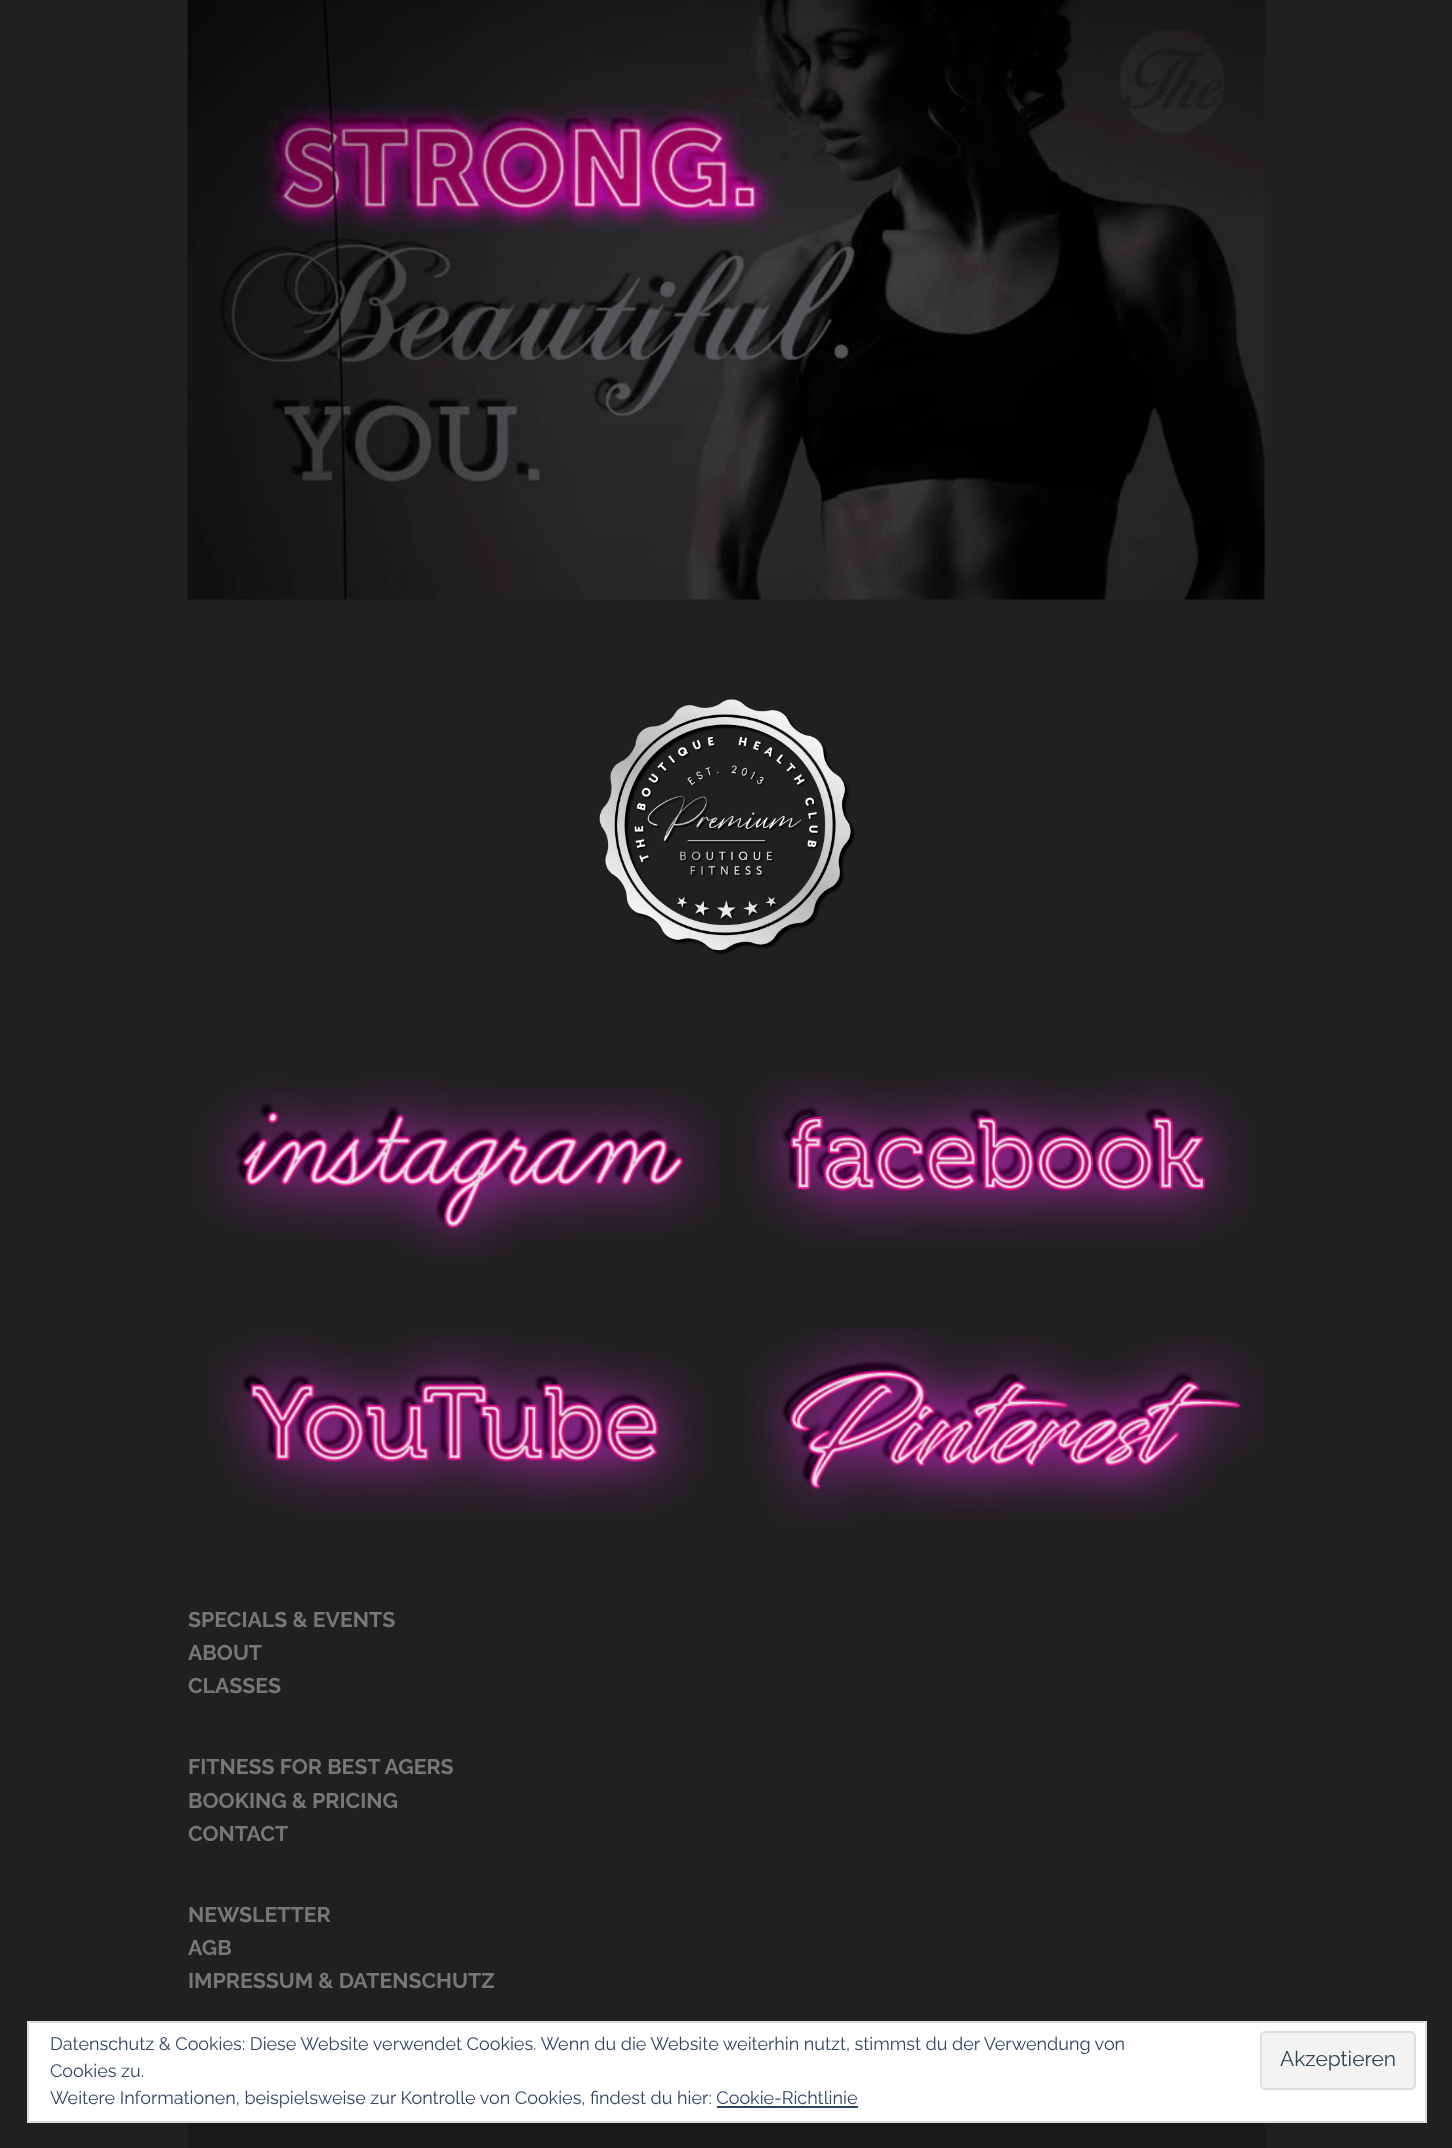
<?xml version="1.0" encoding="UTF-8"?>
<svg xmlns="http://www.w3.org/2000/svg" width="1452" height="2148">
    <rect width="100%" height="100%" fill="#202020"/>
    <image x="187" y="0" width="1078" height="600" href="img_01.png"/>
    <image x="599" y="699" width="256" height="256" href="img_02.png"/>
    <image x="199" y="1079" width="521" height="178" href="img_03.png"/>
    <image x="743" y="1074" width="506" height="167" href="img_04.png"/>
    <image x="209" y="1333" width="496" height="180" href="img_05.png"/>
    <image x="747" y="1328" width="517" height="196" href="img_06.png"/>
    <text font-family="Raleway" font-size="21.3" font-weight="700" fill="#777777">
        <tspan x="188" y="1627">SPECIALS &amp; EVENTS</tspan>
        <tspan x="188" y="1660">ABOUT</tspan>
        <tspan x="188" y="1693">CLASSES</tspan>
    </text>
    <text font-family="Raleway" font-size="21.3" font-weight="700" fill="#777777">
        <tspan x="188" y="1774">FITNESS FOR BEST AGERS</tspan>
        <tspan x="188" y="1808">BOOKING &amp; PRICING</tspan>
        <tspan x="188" y="1841">CONTACT</tspan>
    </text>
    <text font-family="Raleway" font-size="21.3" font-weight="700" fill="#777777">
        <tspan x="188" y="1922">NEWSLETTER</tspan>
        <tspan x="188" y="1955">AGB</tspan>
        <tspan x="188" y="1988">IMPRESSUM &amp; DATENSCHUTZ</tspan>
    </text>
    <rect x="188" y="2123" width="1077" height="25" fill="#191919"/>
    <rect x="28" y="2022" width="1398" height="100" fill="#FFFFFF" stroke="#DEDEDE" stroke-width="2"/>
    <text font-family="Raleway" font-size="18" fill="#2E4467">
        <tspan x="50" y="2050">Datenschutz &amp; Cookies: Diese Website verwendet Cookies. Wenn du die Website weiterhin nutzt, stimmst du der Verwendung von</tspan>
        <tspan x="50" y="2077">Cookies zu.</tspan>
    </text>
    <rect x="1261" y="2032" width="154" height="57" rx="4" fill="#F3F3F3" stroke="#DEDEDE" stroke-width="2"/>
    <text x="1280" y="2066" font-family="Raleway" font-size="21" fill="#2E4453">Akzeptieren</text>
    <text x="50" y="2104" font-family="Raleway" font-size="18" fill="#2E4467">Weitere Informationen, beispielsweise zur Kontrolle von Cookies, findest du hier: Cookie-Richtlinie</text>
    <rect x="717" y="2106" width="141" height="2" fill="#2E4467"/>
</svg>
